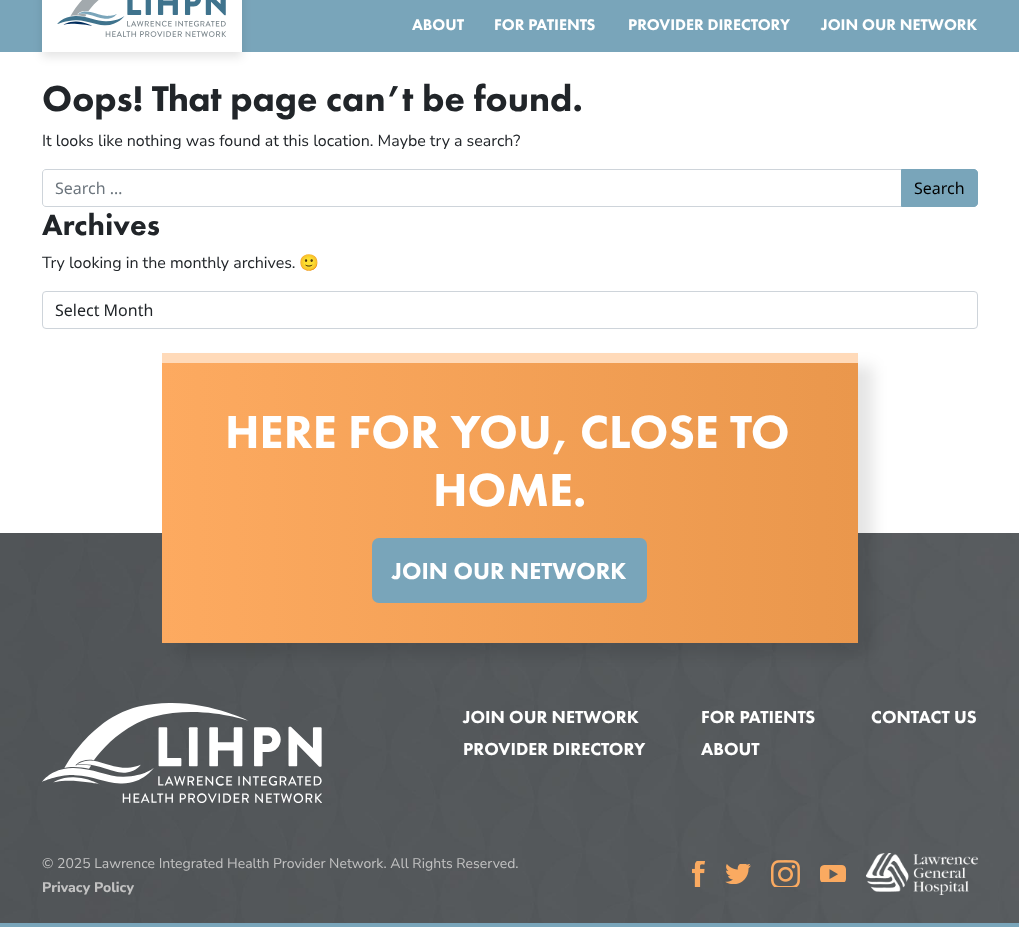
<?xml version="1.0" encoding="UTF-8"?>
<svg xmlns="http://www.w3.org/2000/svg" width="1019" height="927">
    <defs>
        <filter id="blur1" x="-50%" y="-200%" width="200%" height="500%"><feGaussianBlur stdDeviation="5"/></filter>
        <filter id="blur2" x="-50%" y="-200%" width="200%" height="500%"><feGaussianBlur stdDeviation="7.5"/></filter>
        <linearGradient id="g1" gradientUnits="userSpaceOnUse" x1="162" y1="503" x2="858" y2="503"><stop offset="0" stop-color="#FDAA60"/><stop offset="1" stop-color="#EA974C"/></linearGradient>
    </defs>
    <rect width="100%" height="100%" fill="#FFFFFF"/>
    <rect x="0" y="0" width="1019" height="52" fill="#79A5BA"/>
    <rect x="42" y="-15" width="200" height="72" fill="#000000" fill-opacity="0.1" filter="url(#blur1)"/>
    <rect x="42" y="0" width="200" height="52" fill="#FFFFFF"/>
    <image x="57" y="0" width="169" height="37" href="img_01.png"/>
    <text x="412" y="30" font-family="Futura PT" font-size="16" font-weight="900" fill="#FFFFFF">ABOUT</text>
    <text x="494" y="30" font-family="Futura PT" font-size="16" font-weight="900" fill="#FFFFFF">FOR PATIENTS</text>
    <text x="628" y="30" font-family="Futura PT" font-size="16" font-weight="900" fill="#FFFFFF">PROVIDER DIRECTORY</text>
    <text x="821" y="30" font-family="Futura PT" font-size="16" font-weight="900" fill="#FFFFFF">JOIN OUR NETWORK</text>
    <text x="42" y="111" font-family="Futura PT" font-size="37.25" font-weight="900" fill="#212529">Oops! That page can’t be found.</text>
    <text x="42" y="146" font-family="Nunito Sans" font-size="16" fill="#212529">It looks like nothing was found at this location. Maybe try a search?</text>
    <path d="M 46 169.5 H 901.5 V 206.5 H 46 C 44 206.5 42.5 205 42.5 203 V 173 C 42.5 171 44 169.5 46 169.5 Z" fill="none" stroke="#CED4DA"/>
    <text x="55" y="194" font-family="Noto Sans" font-size="16" fill="#6C757D">Search …</text>
    <path d="M 901.5 169.5 H 974 C 976 169.5 977.5 171 977.5 173 V 203 C 977.5 205 976 206.5 974 206.5 H 901.5 Z" fill="#79A5BA" stroke="#79A5BA"/>
    <text x="914" y="194" font-family="Noto Sans" font-size="16" fill="#000000">Search</text>
    <text x="42" y="235" font-family="Futura PT" font-size="30.5" font-weight="900" fill="#212529">Archives</text>
    <text x="42" y="268" font-family="Nunito Sans" font-size="16" fill="#212529">Try looking in the monthly archives.</text>
    <text x="299" y="268" font-family="Noto Color Emoji" font-size="16" fill="#212529">🙂</text>
    <rect x="42.5" y="291.5" width="935" height="37" rx="3.5" fill="none" stroke="#CED4DA"/>
    <text x="55" y="316" font-family="Noto Sans" font-size="16" fill="#212529">Select Month</text>
    <image x="0" y="533" width="1019" height="390" href="img_02.png"/>
    <rect x="177" y="366" width="696" height="290" fill="#000000" fill-opacity="0.1" filter="url(#blur2)"/>
    <rect x="162" y="363" width="696" height="280" fill="url(#g1)"/>
    <rect x="162" y="353" width="696" height="10" fill="#FFDAB9"/>
    <text x="225" y="448" font-family="Futura PT" font-size="48" font-weight="900" fill="#FFFFFF">HERE FOR YOU, CLOSE TO</text>
    <text x="433" y="506" font-family="Futura PT" font-size="48" font-weight="900" fill="#FFFFFF">HOME.</text>
    <rect x="372" y="538" width="275" height="65" rx="7" fill="#79A5BA"/>
    <text x="392" y="579" font-family="Futura PT" font-size="24" font-weight="900" fill="#FFFFFF">JOIN OUR NETWORK</text>
    <rect x="0" y="923" width="1019" height="4" fill="#79A5BA"/>
    <image x="42" y="703" width="280" height="100" href="img_03.png"/>
    <text font-family="Futura PT" font-size="18" font-weight="900" fill="#FFFFFF">
        <tspan x="463" y="723">JOIN OUR NETWORK</tspan>
        <tspan x="463" y="755">PROVIDER DIRECTORY</tspan>
    </text>
    <text font-family="Futura PT" font-size="18" font-weight="900" fill="#FFFFFF">
        <tspan x="701" y="723">FOR PATIENTS</tspan>
        <tspan x="701" y="755">ABOUT</tspan>
    </text>
    <text x="871" y="723" font-family="Futura PT" font-size="18" font-weight="900" fill="#FFFFFF">CONTACT US</text>
    <text x="42" y="868" font-family="Nunito Sans" font-size="14" fill="#C2C2C2">© 2025 Lawrence Integrated Health Provider Network. All Rights Reserved.</text>
    <text x="42" y="892" font-family="Nunito Sans" font-size="14" font-weight="800" fill="#C2C2C2">Privacy Policy</text>
    <image x="692" y="861" width="13" height="26" href="img_04.png"/>
    <image x="725" y="864" width="26" height="20" href="img_05.png"/>
    <image x="771" y="860" width="29" height="27" href="img_06.png"/>
    <image x="820" y="865" width="26" height="17" href="img_07.png"/>
    <image x="866" y="853" width="112" height="42" href="img_08.png"/>
</svg>
